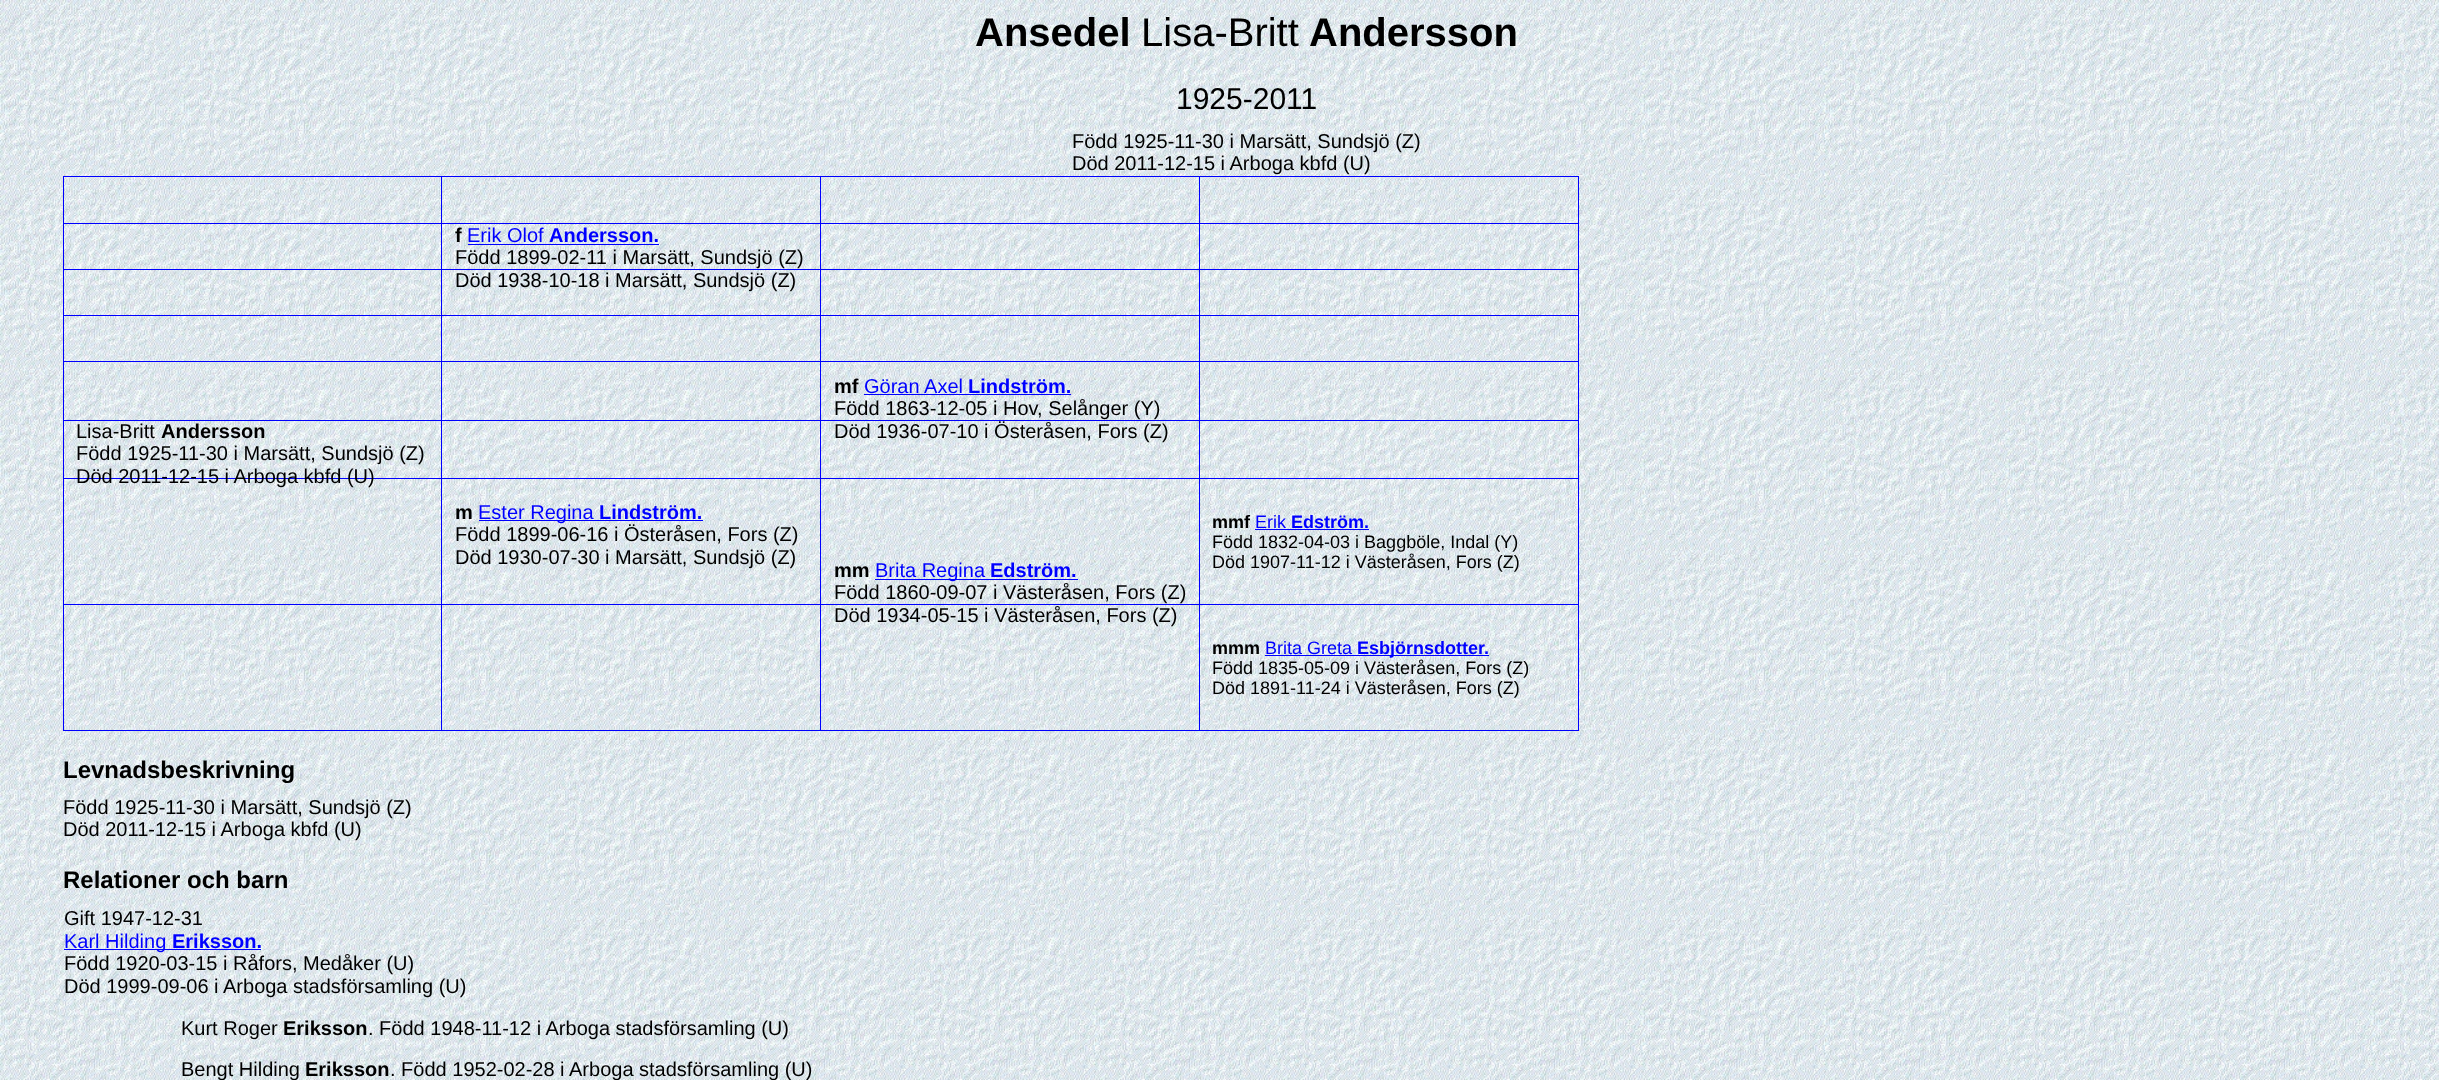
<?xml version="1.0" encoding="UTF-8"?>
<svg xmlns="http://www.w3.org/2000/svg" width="2439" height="1080">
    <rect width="100%" height="100%" fill="#FFFFFF"/>
    <image x="0" y="0" width="2439" height="1080" href="img_01.png"/>
    <text x="975" y="46" font-family="Liberation Sans" font-size="40" font-weight="700" fill="#000000">Ansedel</text>
    <text x="1141" y="46" font-family="Liberation Sans" font-size="40" fill="#000000">Lisa-Britt</text>
    <text x="1309" y="46" font-family="Liberation Sans" font-size="40" font-weight="700" fill="#000000">Andersson</text>
    <text x="1176" y="109" font-family="Liberation Sans" font-size="30" fill="#000000">1925-2011</text>
    <text font-family="Liberation Sans" font-size="20" fill="#000000">
        <tspan x="1072" y="148">Född 1925-11-30 i Marsätt, Sundsjö (Z)</tspan>
        <tspan x="1072" y="170">Död 2011-12-15 i Arboga kbfd (U)</tspan>
    </text>
    <rect x="63" y="176" width="1516" height="1" fill="#0000FF"/>
    <rect x="1578" y="176" width="1" height="555" fill="#0000FF"/>
    <rect x="63" y="730" width="1516" height="1" fill="#0000FF"/>
    <rect x="63" y="176" width="1" height="555" fill="#0000FF"/>
    <rect x="63" y="223" width="1516" height="1" fill="#0000FF"/>
    <text x="455" y="242" font-family="Liberation Sans" font-size="20" font-weight="700" fill="#000000">f</text>
    <text x="467" y="242" font-family="Liberation Sans" font-size="20" fill="#0000FF">Erik Olof</text>
    <rect x="468" y="244" width="191" height="1" fill="#0000FF"/>
    <text x="549" y="242" font-family="Liberation Sans" font-size="20" font-weight="700" fill="#0000FF">Andersson.</text>
    <text font-family="Liberation Sans" font-size="20" fill="#000000">
        <tspan x="455" y="264">Född 1899-02-11 i Marsätt, Sundsjö (Z)</tspan>
        <tspan x="455" y="287">Död 1938-10-18 i Marsätt, Sundsjö (Z)</tspan>
    </text>
    <text x="76" y="438" font-family="Liberation Sans" font-size="20" fill="#000000">Lisa-Britt</text>
    <text x="161" y="438" font-family="Liberation Sans" font-size="20" font-weight="700" fill="#000000">Andersson</text>
    <text x="76" y="460" font-family="Liberation Sans" font-size="20" fill="#000000">Född 1925-11-30 i Marsätt, Sundsjö (Z)</text>
    <rect x="63" y="478" width="1516" height="1" fill="#0000FF"/>
    <text x="76" y="483" font-family="Liberation Sans" font-size="20" fill="#000000">Död 2011-12-15 i Arboga kbfd (U)</text>
    <rect x="63" y="269" width="1516" height="1" fill="#0000FF"/>
    <rect x="63" y="315" width="1516" height="1" fill="#0000FF"/>
    <rect x="63" y="361" width="1516" height="1" fill="#0000FF"/>
    <text x="834" y="393" font-family="Liberation Sans" font-size="20" font-weight="700" fill="#000000">mf</text>
    <text x="864" y="393" font-family="Liberation Sans" font-size="20" fill="#0000FF">Göran Axel</text>
    <rect x="864" y="394" width="207" height="1" fill="#0000FF"/>
    <text x="968" y="393" font-family="Liberation Sans" font-size="20" font-weight="700" fill="#0000FF">Lindström.</text>
    <text font-family="Liberation Sans" font-size="20" fill="#000000">
        <tspan x="834" y="415">Född 1863-12-05 i Hov, Selånger (Y)</tspan>
        <tspan x="834" y="438">Död 1936-07-10 i Österåsen, Fors (Z)</tspan>
    </text>
    <rect x="63" y="420" width="1516" height="1" fill="#0000FF"/>
    <rect x="63" y="604" width="1516" height="1" fill="#0000FF"/>
    <rect x="441" y="176" width="1" height="555" fill="#0000FF"/>
    <text x="455" y="519" font-family="Liberation Sans" font-size="20" font-weight="700" fill="#000000">m</text>
    <rect x="479" y="520" width="224" height="1" fill="#0000FF"/>
    <text x="478" y="519" font-family="Liberation Sans" font-size="20" fill="#0000FF">Ester Regina</text>
    <text x="599" y="519" font-family="Liberation Sans" font-size="20" font-weight="700" fill="#0000FF">Lindström.</text>
    <text font-family="Liberation Sans" font-size="20" fill="#000000">
        <tspan x="455" y="541">Född 1899-06-16 i Österåsen, Fors (Z)</tspan>
        <tspan x="455" y="564">Död 1930-07-30 i Marsätt, Sundsjö (Z)</tspan>
    </text>
    <text x="1212" y="528" font-family="Liberation Sans" font-size="18" font-weight="700" fill="#000000">mmf</text>
    <text x="1255" y="528" font-family="Liberation Sans" font-size="18" fill="#0000FF">Erik</text>
    <text x="1291" y="528" font-family="Liberation Sans" font-size="18" font-weight="700" fill="#0000FF">Edström.</text>
    <rect x="1255" y="529" width="114" height="1" fill="#0000FF"/>
    <text font-family="Liberation Sans" font-size="18" fill="#000000">
        <tspan x="1212" y="548">Född 1832-04-03 i Baggböle, Indal (Y)</tspan>
        <tspan x="1212" y="568">Död 1907-11-12 i Västeråsen, Fors (Z)</tspan>
    </text>
    <rect x="820" y="176" width="1" height="555" fill="#0000FF"/>
    <text x="834" y="577" font-family="Liberation Sans" font-size="20" font-weight="700" fill="#000000">mm</text>
    <rect x="875" y="579" width="203" height="1" fill="#0000FF"/>
    <text x="875" y="577" font-family="Liberation Sans" font-size="20" fill="#0000FF">Brita Regina</text>
    <text x="990" y="577" font-family="Liberation Sans" font-size="20" font-weight="700" fill="#0000FF">Edström.</text>
    <text font-family="Liberation Sans" font-size="20" fill="#000000">
        <tspan x="834" y="599">Född 1860-09-07 i Västeråsen, Fors (Z)</tspan>
        <tspan x="834" y="622">Död 1934-05-15 i Västeråsen, Fors (Z)</tspan>
    </text>
    <rect x="1199" y="176" width="1" height="555" fill="#0000FF"/>
    <text x="1212" y="654" font-family="Liberation Sans" font-size="18" font-weight="700" fill="#000000">mmm</text>
    <text x="1265" y="654" font-family="Liberation Sans" font-size="18" fill="#0000FF">Brita Greta</text>
    <rect x="1265" y="655" width="219" height="1" fill="#0000FF"/>
    <text x="1357" y="654" font-family="Liberation Sans" font-size="18" font-weight="700" fill="#0000FF">Esbjörnsdotter</text>
    <text x="1484" y="654" font-family="Liberation Sans" font-size="18" font-weight="700" fill="#0000FF">.</text>
    <rect x="1484" y="655" width="5" height="1" fill="#0000FF"/>
    <text font-family="Liberation Sans" font-size="18" fill="#000000">
        <tspan x="1212" y="674">Född 1835-05-09 i Västeråsen, Fors (Z)</tspan>
        <tspan x="1212" y="694">Död 1891-11-24 i Västeråsen, Fors (Z)</tspan>
    </text>
    <text x="63" y="778" font-family="Liberation Sans" font-size="24" font-weight="700" fill="#000000">Levnadsbeskrivning</text>
    <text font-family="Liberation Sans" font-size="20" fill="#000000">
        <tspan x="63" y="814">Född 1925-11-30 i Marsätt, Sundsjö (Z)</tspan>
        <tspan x="63" y="836">Död 2011-12-15 i Arboga kbfd (U)</tspan>
    </text>
    <text x="63" y="888" font-family="Liberation Sans" font-size="24" font-weight="700" fill="#000000">Relationer och barn</text>
    <text x="64" y="925" font-family="Liberation Sans" font-size="20" fill="#000000">Gift 1947-12-31</text>
    <rect x="64" y="949" width="197" height="1" fill="#0000FF"/>
    <text x="64" y="948" font-family="Liberation Sans" font-size="20" fill="#0000FF">Karl Hilding</text>
    <text x="172" y="948" font-family="Liberation Sans" font-size="20" font-weight="700" fill="#0000FF">Eriksson.</text>
    <text font-family="Liberation Sans" font-size="20" fill="#000000">
        <tspan x="64" y="970">Född 1920-03-15 i Råfors, Medåker (U)</tspan>
        <tspan x="64" y="993">Död 1999-09-06 i Arboga stadsförsamling (U)</tspan>
    </text>
    <text x="181" y="1035" font-family="Liberation Sans" font-size="20" fill="#000000">Kurt Roger</text>
    <text x="283" y="1035" font-family="Liberation Sans" font-size="20" font-weight="700" fill="#000000">Eriksson</text>
    <text x="368" y="1035" font-family="Liberation Sans" font-size="20" fill="#000000">. Född 1948-11-12 i Arboga stadsförsamling (U)</text>
    <text x="181" y="1076" font-family="Liberation Sans" font-size="20" fill="#000000">Bengt Hilding</text>
    <text x="305" y="1076" font-family="Liberation Sans" font-size="20" font-weight="700" fill="#000000">Eriksson</text>
    <text x="390" y="1076" font-family="Liberation Sans" font-size="20" fill="#000000">. Född 1952-02-28 i Arboga stadsförsamling (U)</text>
</svg>
